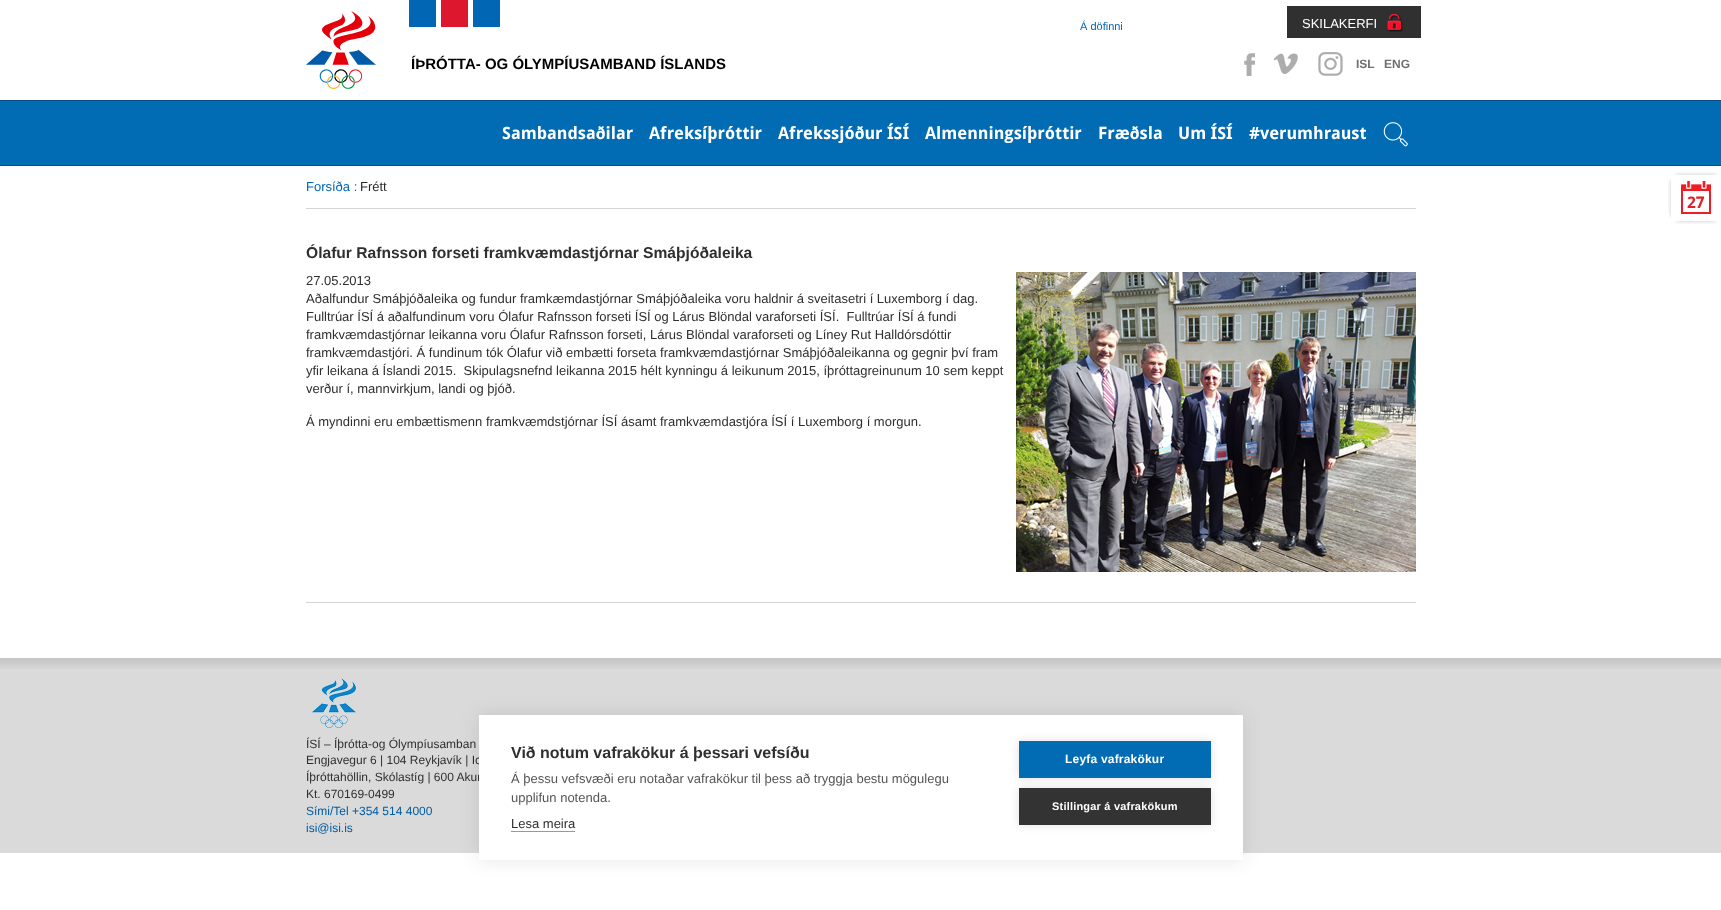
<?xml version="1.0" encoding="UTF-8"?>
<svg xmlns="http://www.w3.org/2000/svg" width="1721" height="910">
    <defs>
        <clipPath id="clip1"><rect x="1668" y="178" width="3" height="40"/></clipPath>
        <filter id="blur1" x="-50%" y="-200%" width="200%" height="500%"><feGaussianBlur stdDeviation="2.5"/></filter>
        <clipPath id="clip2"><rect x="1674" y="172" width="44" height="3"/></clipPath>
        <clipPath id="clip3"><rect x="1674" y="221" width="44" height="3"/></clipPath>
        <filter id="blur2" x="-50%" y="-200%" width="200%" height="500%"><feGaussianBlur stdDeviation="10"/></filter>
        <filter id="blur3" x="-50%" y="-200%" width="200%" height="500%"><feGaussianBlur stdDeviation="5"/></filter>
    </defs>
    <rect width="100%" height="100%" fill="#FFFFFF"/>
    <text x="1080" y="30" font-family="Liberation Sans" font-size="11" fill="#0166B3">Á döfinni</text>
    <rect x="1287" y="6" width="134" height="32" fill="#303030"/>
    <image x="1387" y="14" width="16" height="18" href="img_01.png"/>
    <text x="1302" y="28" font-family="Liberation Sans" font-size="13" fill="#FFFFFF">SKILAKERFI</text>
    <image x="1244" y="53" width="11" height="23" href="img_02.png"/>
    <image x="1274" y="53" width="24" height="21" href="img_03.png"/>
    <image x="1318" y="52" width="25" height="24" href="img_04.png"/>
    <text x="1356" y="68" font-family="Liberation Sans" font-size="12" font-weight="700" fill="#6F6F6F">ISL</text>
    <text x="1384" y="68" font-family="Liberation Sans" font-size="12" font-weight="700" fill="#6F6F6F">ENG</text>
    <rect x="0" y="101" width="1721" height="64" fill="#016BB3"/>
    <rect x="0" y="100" width="1721" height="1" fill="#064E85"/>
    <rect x="0" y="165" width="1721" height="1" fill="#064E85"/>
    <image x="306" y="11" width="70" height="78" href="img_05.png"/>
    <image x="409" y="0" width="91" height="27" href="img_06.png"/>
    <text x="411" y="69" font-family="Liberation Sans" font-size="15" font-weight="700" fill="#000000">ÍÞRÓTTA- OG ÓLYMPÍUSAMBAND ÍSLANDS</text>
    <text x="502" y="139" font-family="Droid Sans" font-size="17" font-weight="700" fill="#FFFFFF">Sambandsaðilar</text>
    <text x="649" y="139" font-family="Droid Sans" font-size="17" font-weight="700" fill="#FFFFFF">Afreksíþróttir</text>
    <text x="778" y="139" font-family="Droid Sans" font-size="17" font-weight="700" fill="#FFFFFF">Afrekssjóður ÍSÍ</text>
    <text x="925" y="139" font-family="Droid Sans" font-size="17" font-weight="700" fill="#FFFFFF">Almenningsíþróttir</text>
    <text x="1098" y="139" font-family="Droid Sans" font-size="17" font-weight="700" fill="#FFFFFF">Fræðsla</text>
    <text x="1178" y="139" font-family="Droid Sans" font-size="17" font-weight="700" fill="#FFFFFF">Um ÍSÍ</text>
    <text x="1249" y="139" font-family="Droid Sans" font-size="17" font-weight="700" fill="#FFFFFF">#verumhraust</text>
    <image x="1383" y="122" width="25" height="25" href="img_07.png"/>
    <rect x="306" y="208" width="1110" height="1" fill="#D4D4D4"/>
    <text x="306" y="191" font-family="Liberation Sans" font-size="13" fill="#0166B3">Forsíða :</text>
    <text x="360" y="191" font-family="Liberation Sans" font-size="13" fill="#292929">Frétt</text>
    <rect x="306" y="602" width="1110" height="1" fill="#D4D4D4"/>
    <text x="306" y="258" font-family="Liberation Sans" font-size="15.6" font-weight="700" fill="#2F2F2F">Ólafur Rafnsson forseti framkvæmdastjórnar Smáþjóðaleika</text>
    <text x="306" y="285" font-family="Liberation Sans" font-size="13" fill="#2F2F2F">27.05.2013</text>
    <image x="1016" y="272" width="400" height="300" href="img_08.png"/>
    <text font-family="Liberation Sans" font-size="13" fill="#2F2F2F" xml:space="preserve"><tspan x="306" y="303">Aðalfundur Smáþjóðaleika og fundur framkæmdastjórnar Smáþjóðaleika voru haldnir á sveitasetri í Luxemborg í dag.</tspan><tspan x="306" y="321">Fulltrúar ÍSÍ á aðalfundinum voru Ólafur Rafnsson forseti ÍSÍ og Lárus Blöndal varaforseti ÍSÍ.  Fulltrúar ÍSÍ á fundi</tspan><tspan x="306" y="339">framkvæmdastjórnar leikanna voru Ólafur Rafnsson forseti, Lárus Blöndal varaforseti og Líney Rut Halldórsdóttir</tspan><tspan x="306" y="357">framkvæmdastjóri. Á fundinum tók Ólafur við embætti forseta framkvæmdastjórnar Smáþjóðaleikanna og gegnir því fram</tspan><tspan x="306" y="375">yfir leikana á Íslandi 2015.  Skipulagsnefnd leikanna 2015 hélt kynningu á leikunum 2015, íþróttagreinunum 10 sem keppt</tspan><tspan x="306" y="393">verður í, mannvirkjum, landi og þjóð.</tspan></text>
    <text x="306" y="426" font-family="Liberation Sans" font-size="13" fill="#2F2F2F">Á myndinni eru embættismenn framkvæmdstjórnar ÍSÍ ásamt framkvæmdastjóra ÍSÍ í Luxemborg í morgun.</text>
    <g clip-path="url(#clip1)">
        <rect x="1671" y="180" width="40" height="36" fill="#000000" fill-opacity="0.2" filter="url(#blur1)"/>
    </g>
    <g clip-path="url(#clip2)">
        <rect x="1676" y="175" width="40" height="36" fill="#000000" fill-opacity="0.2" filter="url(#blur1)"/>
    </g>
    <g clip-path="url(#clip3)">
        <rect x="1676" y="185" width="40" height="36" fill="#000000" fill-opacity="0.2" filter="url(#blur1)"/>
    </g>
    <image x="1681" y="181" width="30" height="33" href="img_09.png"/>
    <text x="1687" y="208" font-family="Droid Sans" font-size="16" font-weight="700" fill="#DD2126">27</text>
    <rect x="0" y="669" width="1721" height="184" fill="#DADADA"/>
    <image x="0" y="658" width="1721" height="11" href="img_10.png"/>
    <image x="311" y="678" width="46" height="51" href="img_11.png"/>
    <text font-family="Liberation Sans" font-size="12" fill="#2F2F2F">
        <tspan x="306" y="748">ÍSÍ – Íþrótta-og Ólympíusamban</tspan>
        <tspan x="306" y="764">Engjavegur 6 | 104 Reykjavík | Ic</tspan>
        <tspan x="306" y="781">Íþróttahöllin, Skólastíg | 600 Akur</tspan>
        <tspan x="306" y="798">Kt. 670169-0499</tspan>
    </text>
    <text font-family="Liberation Sans" font-size="12" fill="#015DA3">
        <tspan x="306" y="815">Sími/Tel +354 514 4000</tspan>
        <tspan x="306" y="832">isi@isi.is</tspan>
    </text>
    <rect x="479" y="715" width="764" height="145" fill="#000000" fill-opacity="0.1" filter="url(#blur2)"/>
    <rect x="479" y="715" width="764" height="145" fill="#FFFFFF"/>
    <text x="511" y="758" font-family="Liberation Sans" font-size="16" font-weight="700" fill="#2F2F2F">Við notum vafrakökur á þessari vefsíðu</text>
    <text font-family="Liberation Sans" font-size="13" fill="#555555">
        <tspan x="511" y="783">Á þessu vefsvæði eru notaðar vafrakökur til þess að tryggja bestu mögulegu</tspan>
        <tspan x="511" y="802">upplifun notenda.</tspan>
    </text>
    <text x="511" y="828" font-family="Liberation Sans" font-size="13" fill="#2F2F2F">Lesa meira</text>
    <rect x="511" y="831" width="64" height="1" fill="#999999"/>
    <rect x="1019" y="741" width="192" height="37" fill="#000000" fill-opacity="0.12" filter="url(#blur3)"/>
    <rect x="1019" y="741" width="192" height="37" fill="#016BB3"/>
    <text x="1065" y="763" font-family="Liberation Sans" font-size="12" font-weight="700" letter-spacing="0.2" fill="#FFFFFF">Leyfa vafrakökur</text>
    <rect x="1019" y="788" width="192" height="37" fill="#000000" fill-opacity="0.12" filter="url(#blur3)"/>
    <rect x="1019" y="788" width="192" height="37" fill="#333333"/>
    <text x="1052" y="810" font-family="Liberation Sans" font-size="11" font-weight="700" letter-spacing="0.2" fill="#FFFFFF">Stillingar á vafrakökum</text>
</svg>
